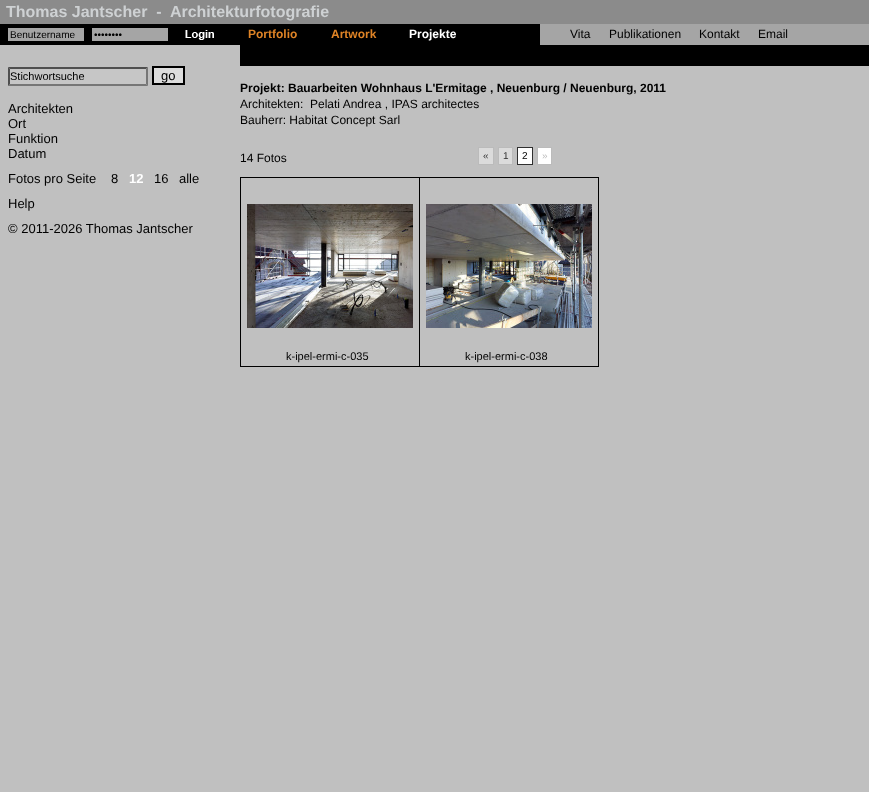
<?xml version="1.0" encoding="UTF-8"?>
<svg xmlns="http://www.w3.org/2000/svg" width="869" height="792">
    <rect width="100%" height="100%" fill="#C0C0C0"/>
    <rect x="0" y="0" width="869" height="24" fill="#8B8B8B"/>
    <text x="6" y="17" font-family="Liberation Sans" font-size="16" font-weight="700" fill="#CED1D3" xml:space="preserve">Thomas Jantscher  -  Architekturfotografie</text>
    <rect x="0" y="24" width="240" height="21" fill="#000000"/>
    <rect x="8" y="28" width="76" height="13" fill="#A5A5A5"/>
    <text x="10" y="38" font-family="Liberation Sans" font-size="10" fill="#000000">Benutzername</text>
    <rect x="92" y="28" width="76" height="13" fill="#A5A5A5"/>
    <text x="94" y="38" font-family="Liberation Sans" font-size="10" fill="#000000">••••••••</text>
    <image x="185" y="30" width="29" height="10" href="img_01.png"/>
    <rect x="8" y="67" width="140" height="19" fill="#C6C6C6"/>
    <path d="M 8 67 H 148 L 146 69 H 10 Z" fill="#4F4F4F"/>
    <path d="M 148 67 V 86 L 146 84 V 69 Z" fill="#767676"/>
    <path d="M 148 86 H 8 L 10 84 H 146 Z" fill="#767676"/>
    <path d="M 8 86 V 67 L 10 69 V 84 Z" fill="#4F4F4F"/>
    <text x="10" y="80" font-family="Liberation Sans" font-size="11" fill="#000000">Stichwortsuche</text>
    <rect x="153" y="67" width="31" height="17" fill="#DDDDDD" stroke="#000000" stroke-width="2"/>
    <text x="161" y="80" font-family="Liberation Sans" font-size="13" fill="#000000">go</text>
    <text font-family="Liberation Sans" font-size="13" fill="#000000">
        <tspan x="8" y="113">Architekten</tspan>
        <tspan x="8" y="128">Ort</tspan>
        <tspan x="8" y="143">Funktion</tspan>
        <tspan x="8" y="158">Datum</tspan>
        <tspan x="8" y="183">Fotos pro Seite</tspan>
    </text>
    <text x="111" y="183" font-family="Liberation Sans" font-size="13" fill="#000000">8</text>
    <text x="129" y="183" font-family="Liberation Sans" font-size="13" font-weight="700" fill="#FFFFFF">12</text>
    <text x="154" y="183" font-family="Liberation Sans" font-size="13" fill="#000000">16</text>
    <text x="179" y="183" font-family="Liberation Sans" font-size="13" fill="#000000">alle</text>
    <text font-family="Liberation Sans" font-size="13" fill="#000000">
        <tspan x="8" y="208">Help</tspan>
        <tspan x="8" y="233">© 2011-2026 Thomas Jantscher</tspan>
    </text>
    <image x="240" y="24" width="300" height="21" href="img_02.png"/>
    <text x="248" y="38" font-family="Liberation Sans" font-size="12" font-weight="700" fill="#DE8326">Portfolio</text>
    <text x="331" y="38" font-family="Liberation Sans" font-size="12" font-weight="700" fill="#DE8326">Artwork</text>
    <text x="409" y="38" font-family="Liberation Sans" font-size="12" font-weight="700" fill="#FFFFFF">Projekte</text>
    <rect x="540" y="24" width="329" height="21" fill="#A5A5A5"/>
    <text x="570" y="38" font-family="Liberation Sans" font-size="12" fill="#000000">Vita</text>
    <text x="609" y="38" font-family="Liberation Sans" font-size="12" fill="#000000">Publikationen</text>
    <text x="699" y="38" font-family="Liberation Sans" font-size="12" fill="#000000">Kontakt</text>
    <text x="758" y="38" font-family="Liberation Sans" font-size="12" fill="#000000">Email</text>
    <rect x="240" y="45" width="629" height="21" fill="#000000"/>
    <text x="240" y="92" font-family="Liberation Sans" font-size="12" font-weight="700" fill="#000000">Projekt: Bauarbeiten Wohnhaus L'Ermitage , Neuenburg / Neuenburg, 2011</text>
    <text x="240" y="108" font-family="Liberation Sans" font-size="12" fill="#000000">Architekten:</text>
    <text x="310" y="108" font-family="Liberation Sans" font-size="12" fill="#000000">Pelati Andrea , IPAS architectes</text>
    <text x="240" y="124" font-family="Liberation Sans" font-size="12" fill="#000000">Bauherr: Habitat Concept Sarl</text>
    <text x="240" y="162" font-family="Liberation Sans" font-size="12" fill="#000000">14 Fotos</text>
    <rect x="478.5" y="147.5" width="15" height="17" fill="#DBDBDB" stroke="#BBBBBB"/>
    <text x="483" y="159" font-family="Liberation Sans" font-size="10" fill="#303030">«</text>
    <rect x="498.5" y="147.5" width="14" height="17" fill="#DBDBDB" stroke="#BBBBBB"/>
    <text x="503" y="159" font-family="Liberation Sans" font-size="10" fill="#303030">1</text>
    <rect x="517.5" y="147.5" width="15" height="17" fill="#FFFFFF" stroke="#303030"/>
    <text x="522" y="159" font-family="Liberation Sans" font-size="10" fill="#000000">2</text>
    <rect x="537.5" y="147.5" width="14" height="17" fill="#FFFFFF" stroke="#BBBBBB"/>
    <text x="542" y="159" font-family="Liberation Sans" font-size="10" fill="#BBBBBB">»</text>
    <rect x="240" y="177" width="359" height="1" fill="#000000"/>
    <rect x="598" y="177" width="1" height="190" fill="#000000"/>
    <rect x="240" y="366" width="359" height="1" fill="#000000"/>
    <rect x="240" y="177" width="1" height="190" fill="#000000"/>
    <image x="247" y="204" width="166" height="124" href="img_03.png"/>
    <text x="286" y="360" font-family="Liberation Sans" font-size="11" fill="#000000">k-ipel-ermi-c-035</text>
    <rect x="419" y="177" width="1" height="190" fill="#000000"/>
    <image x="426" y="204" width="166" height="124" href="img_04.png"/>
    <text x="465" y="360" font-family="Liberation Sans" font-size="11" fill="#000000">k-ipel-ermi-c-038</text>
</svg>
